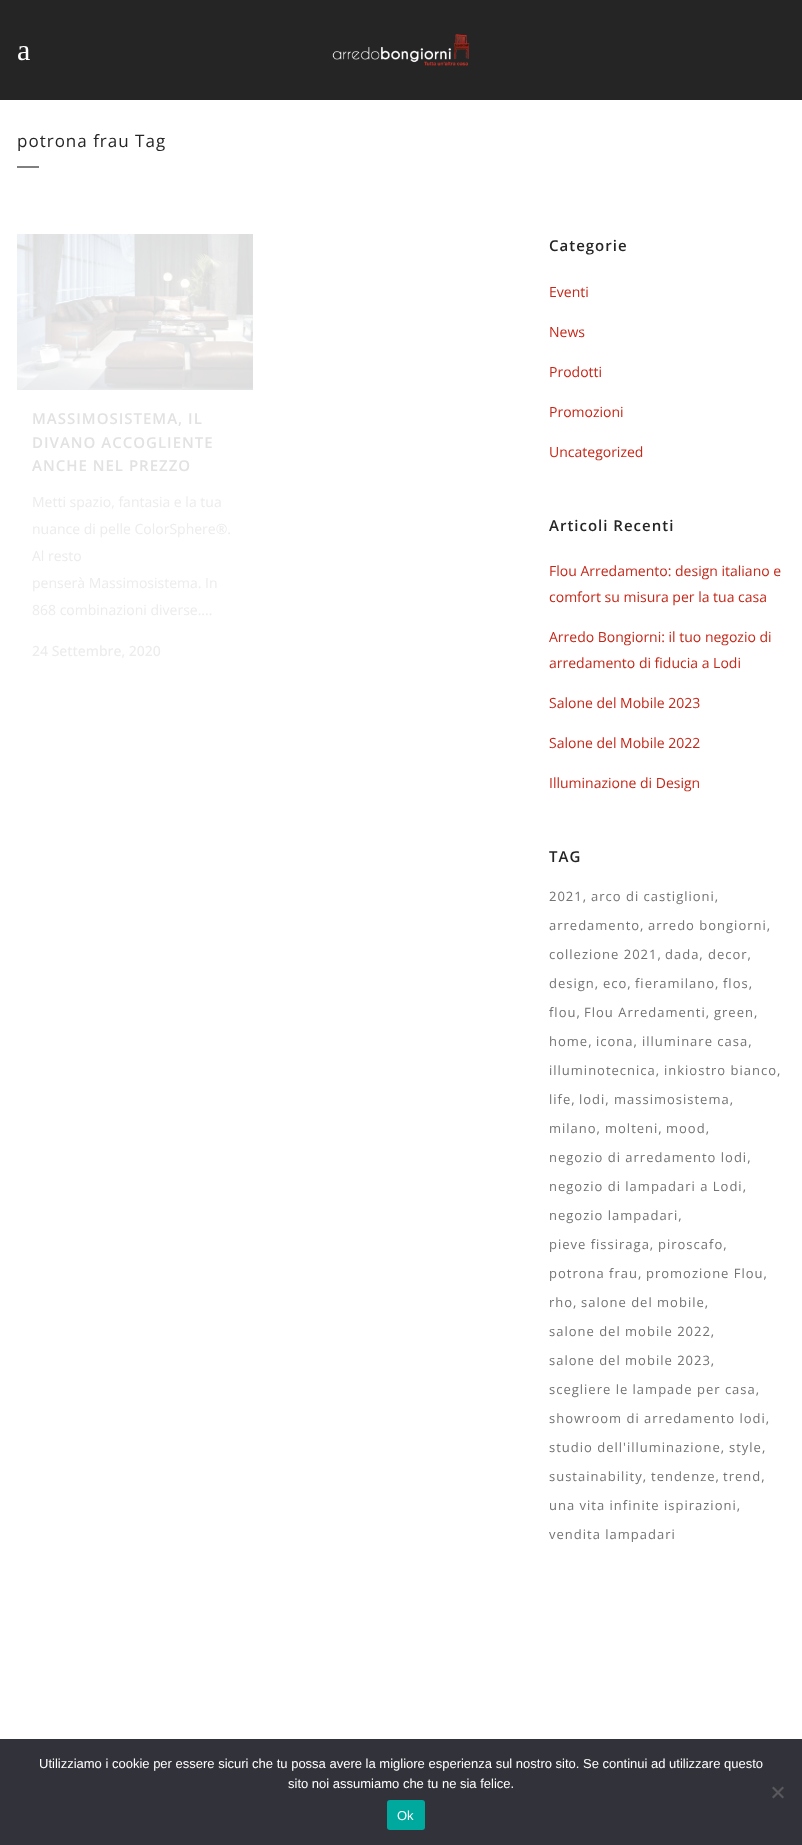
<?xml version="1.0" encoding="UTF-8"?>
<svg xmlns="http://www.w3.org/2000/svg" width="802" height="1845">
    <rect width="100%" height="100%" fill="#FFFFFF"/>
    <rect x="0" y="0" width="802" height="100" fill="#252525"/>
    <text x="17" y="60" font-family="Liberation Serif" font-size="30" fill="#FFFFFF">a</text>
    <image x="332" y="34" width="138" height="32" href="img_01.png"/>
    <text x="17" y="147" font-family="Open Sans" font-size="17" letter-spacing="1" fill="#252525">potrona frau Tag</text>
    <rect x="17" y="166" width="22" height="2" fill="#808080"/>
    <image x="17" y="234" width="236" height="156" href="img_02.png"/>
    <text font-family="Open Sans" font-size="15" font-weight="600" letter-spacing="1" fill="#E2E2E2">
        <tspan x="32" y="424">MASSIMOSISTEMA, IL</tspan>
        <tspan x="32" y="448">DIVANO ACCOGLIENTE</tspan>
        <tspan x="32" y="471">ANCHE NEL PREZZO</tspan>
    </text>
    <text font-family="Open Sans" font-size="14" fill="#ECECEC">
        <tspan x="32" y="507">Metti spazio, fantasia e la tua</tspan>
        <tspan x="32" y="534">nuance di pelle ColorSphere®.</tspan>
        <tspan x="32" y="561">Al resto</tspan>
        <tspan x="32" y="588">penserà Massimosistema. In</tspan>
        <tspan x="32" y="615">868 combinazioni diverse....</tspan>
    </text>
    <text x="32" y="656" font-family="Open Sans" font-size="14" font-weight="500" fill="#ECECEC">24 Settembre, 2020</text>
    <text x="549" y="251" font-family="Open Sans" font-size="15" font-weight="600" letter-spacing="1" fill="#252525">Categorie</text>
    <text x="549" y="297" font-family="Open Sans" font-size="14" fill="#C52718">Eventi</text>
    <text x="549" y="337" font-family="Open Sans" font-size="14" fill="#C52718">News</text>
    <text x="549" y="377" font-family="Open Sans" font-size="14" fill="#C52718">Prodotti</text>
    <text x="549" y="417" font-family="Open Sans" font-size="14" fill="#C52718">Promozioni</text>
    <text x="549" y="457" font-family="Open Sans" font-size="14" fill="#C52718">Uncategorized</text>
    <text x="549" y="531" font-family="Open Sans" font-size="15" font-weight="600" letter-spacing="1" fill="#252525">Articoli Recenti</text>
    <text font-family="Open Sans" font-size="14" fill="#C52718">
        <tspan x="549" y="576">Flou Arredamento: design italiano e</tspan>
        <tspan x="549" y="602">comfort su misura per la tua casa</tspan>
    </text>
    <text font-family="Open Sans" font-size="14" fill="#C52718">
        <tspan x="549" y="642">Arredo Bongiorni: il tuo negozio di</tspan>
        <tspan x="549" y="668">arredamento di fiducia a Lodi</tspan>
    </text>
    <text x="549" y="708" font-family="Open Sans" font-size="14" fill="#C52718">Salone del Mobile 2023</text>
    <text x="549" y="748" font-family="Open Sans" font-size="14" fill="#C52718">Salone del Mobile 2022</text>
    <text x="549" y="788" font-family="Open Sans" font-size="14" fill="#C52718">Illuminazione di Design</text>
    <text x="549" y="862" font-family="Open Sans" font-size="15" font-weight="600" letter-spacing="1" fill="#252525">TAG</text>
    <text x="549" y="901" font-family="Open Sans" font-size="13" letter-spacing="1" fill="#737373">2021,</text>
    <text x="591" y="901" font-family="Open Sans" font-size="13" letter-spacing="1" fill="#737373">arco di castiglioni,</text>
    <text x="549" y="930" font-family="Open Sans" font-size="13" letter-spacing="1" fill="#737373">arredamento,</text>
    <text x="648" y="930" font-family="Open Sans" font-size="13" letter-spacing="1" fill="#737373">arredo bongiorni,</text>
    <text x="549" y="959" font-family="Open Sans" font-size="13" letter-spacing="1" fill="#737373">collezione 2021,</text>
    <text x="665" y="959" font-family="Open Sans" font-size="13" letter-spacing="1" fill="#737373">dada,</text>
    <text x="708" y="959" font-family="Open Sans" font-size="13" letter-spacing="1" fill="#737373">decor,</text>
    <text x="549" y="988" font-family="Open Sans" font-size="13" letter-spacing="1" fill="#737373">design,</text>
    <text x="603" y="988" font-family="Open Sans" font-size="13" letter-spacing="1" fill="#737373">eco,</text>
    <text x="635" y="988" font-family="Open Sans" font-size="13" letter-spacing="1" fill="#737373">fieramilano,</text>
    <text x="723" y="988" font-family="Open Sans" font-size="13" letter-spacing="1" fill="#737373">flos,</text>
    <text x="549" y="1017" font-family="Open Sans" font-size="13" letter-spacing="1" fill="#737373">flou,</text>
    <text x="584" y="1017" font-family="Open Sans" font-size="13" letter-spacing="1" fill="#737373">Flou Arredamenti,</text>
    <text x="714" y="1017" font-family="Open Sans" font-size="13" letter-spacing="1" fill="#737373">green,</text>
    <text x="549" y="1046" font-family="Open Sans" font-size="13" letter-spacing="1" fill="#737373">home,</text>
    <text x="596" y="1046" font-family="Open Sans" font-size="13" letter-spacing="1" fill="#737373">icona,</text>
    <text x="642" y="1046" font-family="Open Sans" font-size="13" letter-spacing="1" fill="#737373">illuminare casa,</text>
    <text x="549" y="1075" font-family="Open Sans" font-size="13" letter-spacing="1" fill="#737373">illuminotecnica,</text>
    <text x="664" y="1075" font-family="Open Sans" font-size="13" letter-spacing="1" fill="#737373">inkiostro bianco,</text>
    <text x="549" y="1104" font-family="Open Sans" font-size="13" letter-spacing="1" fill="#737373">life,</text>
    <text x="579" y="1104" font-family="Open Sans" font-size="13" letter-spacing="1" fill="#737373">lodi,</text>
    <text x="614" y="1104" font-family="Open Sans" font-size="13" letter-spacing="1" fill="#737373">massimosistema,</text>
    <text x="549" y="1133" font-family="Open Sans" font-size="13" letter-spacing="1" fill="#737373">milano,</text>
    <text x="605" y="1133" font-family="Open Sans" font-size="13" letter-spacing="1" fill="#737373">molteni,</text>
    <text x="666" y="1133" font-family="Open Sans" font-size="13" letter-spacing="1" fill="#737373">mood,</text>
    <text x="549" y="1162" font-family="Open Sans" font-size="13" letter-spacing="1" fill="#737373">negozio di arredamento lodi,</text>
    <text x="549" y="1191" font-family="Open Sans" font-size="13" letter-spacing="1" fill="#737373">negozio di lampadari a Lodi,</text>
    <text x="549" y="1220" font-family="Open Sans" font-size="13" letter-spacing="1" fill="#737373">negozio lampadari,</text>
    <text x="549" y="1249" font-family="Open Sans" font-size="13" letter-spacing="1" fill="#737373">pieve fissiraga,</text>
    <text x="658" y="1249" font-family="Open Sans" font-size="13" letter-spacing="1" fill="#737373">piroscafo,</text>
    <text x="549" y="1278" font-family="Open Sans" font-size="13" letter-spacing="1" fill="#737373">potrona frau,</text>
    <text x="646" y="1278" font-family="Open Sans" font-size="13" letter-spacing="1" fill="#737373">promozione Flou,</text>
    <text x="549" y="1307" font-family="Open Sans" font-size="13" letter-spacing="1" fill="#737373">rho,</text>
    <text x="581" y="1307" font-family="Open Sans" font-size="13" letter-spacing="1" fill="#737373">salone del mobile,</text>
    <text x="549" y="1336" font-family="Open Sans" font-size="13" letter-spacing="1" fill="#737373">salone del mobile 2022,</text>
    <text x="549" y="1365" font-family="Open Sans" font-size="13" letter-spacing="1" fill="#737373">salone del mobile 2023,</text>
    <text x="549" y="1394" font-family="Open Sans" font-size="13" letter-spacing="1" fill="#737373">scegliere le lampade per casa,</text>
    <text x="549" y="1423" font-family="Open Sans" font-size="13" letter-spacing="1" fill="#737373">showroom di arredamento lodi,</text>
    <text x="549" y="1452" font-family="Open Sans" font-size="13" letter-spacing="1" fill="#737373">studio dell'illuminazione,</text>
    <text x="729" y="1452" font-family="Open Sans" font-size="13" letter-spacing="1" fill="#737373">style,</text>
    <text x="549" y="1481" font-family="Open Sans" font-size="13" letter-spacing="1" fill="#737373">sustainability,</text>
    <text x="651" y="1481" font-family="Open Sans" font-size="13" letter-spacing="1" fill="#737373">tendenze,</text>
    <text x="723" y="1481" font-family="Open Sans" font-size="13" letter-spacing="1" fill="#737373">trend,</text>
    <text x="549" y="1510" font-family="Open Sans" font-size="13" letter-spacing="1" fill="#737373">una vita infinite ispirazioni,</text>
    <text x="549" y="1539" font-family="Open Sans" font-size="13" letter-spacing="1" fill="#737373">vendita lampadari</text>
    <rect x="0" y="1739" width="802" height="106" fill="#32323A"/>
    <text x="39" y="1768" font-family="Liberation Sans" font-size="13" fill="#FFFFFF">Utilizziamo i cookie per essere sicuri che tu possa avere la migliore esperienza sul nostro sito. Se continui ad utilizzare questo</text>
    <text x="288" y="1788" font-family="Liberation Sans" font-size="13" fill="#FFFFFF">sito noi assumiamo che tu ne sia felice.</text>
    <path d="M 782.5 1786.5 L 784 1788 L 773.5 1798.5 L 772 1797 Z" fill="#59595D"/>
    <path d="M 772 1788 L 773.5 1786.5 L 784 1797 L 782.5 1798.5 Z" fill="#59595D"/>
    <rect x="387" y="1800" width="38" height="30" rx="3" fill="#00A99D"/>
    <text x="397" y="1820" font-family="Liberation Sans" font-size="13" fill="#FFFFFF">Ok</text>
</svg>
